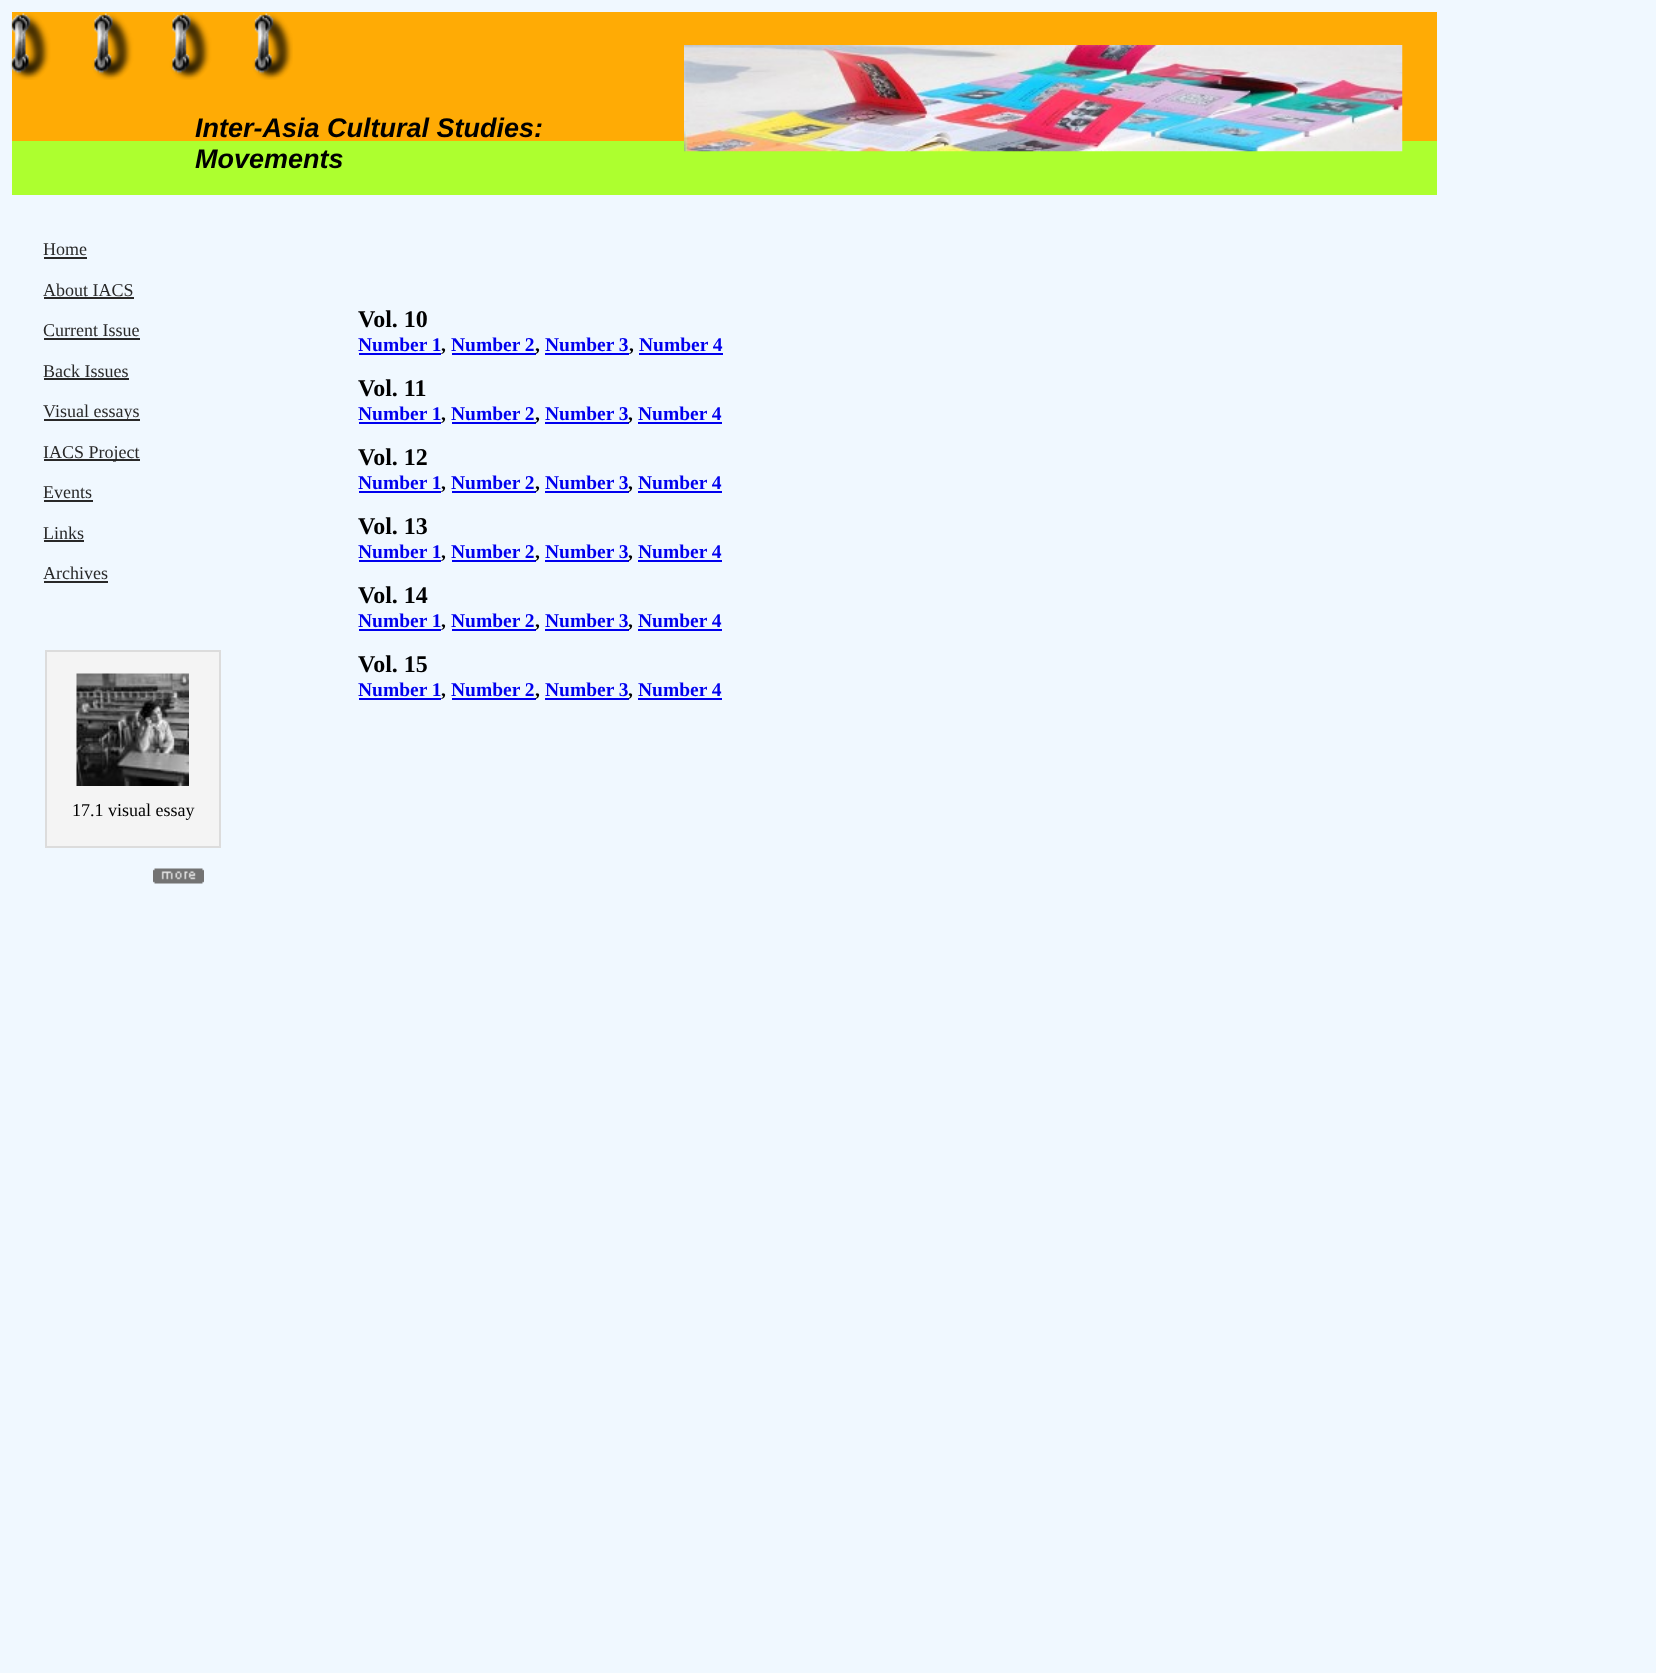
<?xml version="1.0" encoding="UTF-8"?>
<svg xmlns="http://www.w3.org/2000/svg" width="1656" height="1673">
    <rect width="100%" height="100%" fill="#F0F8FF"/>
    <rect x="12" y="12" width="1425" height="129" fill="#FFAB05"/>
    <image x="14" y="13" width="279" height="64" href="img_01.png"/>
    <image x="10" y="16" width="280" height="64" href="img_02.png"/>
    <text x="195" y="137" font-family="Liberation Sans" font-size="27" font-weight="700" font-style="italic" fill="#000000">Inter-Asia Cultural Studies:</text>
    <rect x="12" y="141" width="1425" height="54" fill="#ADFF2F"/>
    <text x="195" y="168" font-family="Liberation Sans" font-size="27" font-weight="700" font-style="italic" fill="#000000">Movements</text>
    <image x="684" y="45" width="719" height="107" href="img_03.png"/>
    <rect x="46" y="651" width="174" height="196" fill="#F4F4F4" stroke="#DCDCDC" stroke-width="2"/>
    <image x="76" y="673" width="113" height="113" href="img_04.png"/>
    <text x="72" y="816" font-family="Liberation Serif" font-size="18" fill="#000000">17.1 visual essay</text>
    <image x="153" y="868" width="51" height="16" href="img_05.png"/>
    <text x="43" y="255" font-family="Liberation Serif" font-size="18" fill="#292929">Home</text>
    <rect x="44" y="257" width="43" height="2" fill="#292929"/>
    <text x="43" y="296" font-family="Liberation Serif" font-size="18" fill="#292929">About IACS</text>
    <rect x="44" y="297" width="90" height="2" fill="#292929"/>
    <text x="43" y="336" font-family="Liberation Serif" font-size="18" fill="#292929">Current Issue</text>
    <rect x="44" y="338" width="96" height="2" fill="#292929"/>
    <text x="43" y="377" font-family="Liberation Serif" font-size="18" fill="#292929">Back Issues</text>
    <rect x="44" y="378" width="85" height="2" fill="#292929"/>
    <rect x="44" y="419" width="96" height="2" fill="#292929"/>
    <text x="43" y="417" font-family="Liberation Serif" font-size="18" fill="#292929">Visual essays</text>
    <rect x="44" y="459" width="96" height="2" fill="#292929"/>
    <text x="43" y="458" font-family="Liberation Serif" font-size="18" fill="#292929">IACS Project</text>
    <text x="43" y="498" font-family="Liberation Serif" font-size="18" fill="#292929">Events</text>
    <rect x="44" y="500" width="49" height="2" fill="#292929"/>
    <text x="43" y="539" font-family="Liberation Serif" font-size="18" fill="#292929">Links</text>
    <rect x="44" y="540" width="40" height="2" fill="#292929"/>
    <text x="43" y="579" font-family="Liberation Serif" font-size="18" fill="#292929">Archives</text>
    <rect x="44" y="581" width="64" height="2" fill="#292929"/>
    <text x="358" y="327" font-family="Liberation Serif" font-size="24" font-weight="700" fill="#000000">Vol. 10</text>
    <text x="358" y="351" font-family="Liberation Serif" font-size="19.5" font-weight="700" fill="#0000EE">Number 1</text>
    <text x="441" y="351" font-family="Liberation Serif" font-size="19.5" font-weight="700" fill="#000000">,</text>
    <rect x="359" y="353" width="82" height="2" fill="#0000EE"/>
    <text x="451" y="351" font-family="Liberation Serif" font-size="19.5" font-weight="700" fill="#0000EE">Number 2</text>
    <rect x="452" y="353" width="84" height="2" fill="#0000EE"/>
    <text x="535" y="351" font-family="Liberation Serif" font-size="19.5" font-weight="700" fill="#000000">,</text>
    <text x="545" y="351" font-family="Liberation Serif" font-size="19.5" font-weight="700" fill="#0000EE">Number 3</text>
    <rect x="545" y="353" width="84" height="2" fill="#0000EE"/>
    <text x="629" y="351" font-family="Liberation Serif" font-size="19.5" font-weight="700" fill="#000000">,</text>
    <text x="639" y="351" font-family="Liberation Serif" font-size="19.5" font-weight="700" fill="#0000EE">Number 4</text>
    <rect x="639" y="353" width="84" height="2" fill="#0000EE"/>
    <text x="358" y="396" font-family="Liberation Serif" font-size="24" font-weight="700" fill="#000000">Vol. 11</text>
    <text x="358" y="420" font-family="Liberation Serif" font-size="19.5" font-weight="700" fill="#0000EE">Number 1</text>
    <text x="441" y="420" font-family="Liberation Serif" font-size="19.5" font-weight="700" fill="#000000">,</text>
    <rect x="359" y="422" width="82" height="2" fill="#0000EE"/>
    <text x="451" y="420" font-family="Liberation Serif" font-size="19.5" font-weight="700" fill="#0000EE">Number 2</text>
    <rect x="452" y="422" width="84" height="2" fill="#0000EE"/>
    <text x="535" y="420" font-family="Liberation Serif" font-size="19.5" font-weight="700" fill="#000000">,</text>
    <text x="545" y="420" font-family="Liberation Serif" font-size="19.5" font-weight="700" fill="#0000EE">Number 3</text>
    <rect x="545" y="422" width="84" height="2" fill="#0000EE"/>
    <text x="628" y="420" font-family="Liberation Serif" font-size="19.5" font-weight="700" fill="#000000">,</text>
    <rect x="638" y="422" width="84" height="2" fill="#0000EE"/>
    <text x="638" y="420" font-family="Liberation Serif" font-size="19.5" font-weight="700" fill="#0000EE">Number 4</text>
    <text x="358" y="465" font-family="Liberation Serif" font-size="24" font-weight="700" fill="#000000">Vol. 12</text>
    <text x="358" y="489" font-family="Liberation Serif" font-size="19.5" font-weight="700" fill="#0000EE">Number 1</text>
    <text x="441" y="489" font-family="Liberation Serif" font-size="19.5" font-weight="700" fill="#000000">,</text>
    <rect x="359" y="491" width="82" height="2" fill="#0000EE"/>
    <text x="451" y="489" font-family="Liberation Serif" font-size="19.5" font-weight="700" fill="#0000EE">Number 2</text>
    <rect x="452" y="491" width="84" height="2" fill="#0000EE"/>
    <text x="535" y="489" font-family="Liberation Serif" font-size="19.5" font-weight="700" fill="#000000">,</text>
    <text x="545" y="489" font-family="Liberation Serif" font-size="19.5" font-weight="700" fill="#0000EE">Number 3</text>
    <rect x="545" y="491" width="84" height="2" fill="#0000EE"/>
    <text x="628" y="489" font-family="Liberation Serif" font-size="19.5" font-weight="700" fill="#000000">,</text>
    <rect x="638" y="491" width="84" height="2" fill="#0000EE"/>
    <text x="638" y="489" font-family="Liberation Serif" font-size="19.5" font-weight="700" fill="#0000EE">Number 4</text>
    <text x="358" y="534" font-family="Liberation Serif" font-size="24" font-weight="700" fill="#000000">Vol. 13</text>
    <text x="358" y="558" font-family="Liberation Serif" font-size="19.5" font-weight="700" fill="#0000EE">Number 1</text>
    <text x="441" y="558" font-family="Liberation Serif" font-size="19.5" font-weight="700" fill="#000000">,</text>
    <rect x="359" y="560" width="82" height="2" fill="#0000EE"/>
    <text x="451" y="558" font-family="Liberation Serif" font-size="19.5" font-weight="700" fill="#0000EE">Number 2</text>
    <rect x="452" y="560" width="84" height="2" fill="#0000EE"/>
    <text x="535" y="558" font-family="Liberation Serif" font-size="19.5" font-weight="700" fill="#000000">,</text>
    <text x="545" y="558" font-family="Liberation Serif" font-size="19.5" font-weight="700" fill="#0000EE">Number 3</text>
    <rect x="545" y="560" width="84" height="2" fill="#0000EE"/>
    <text x="628" y="558" font-family="Liberation Serif" font-size="19.5" font-weight="700" fill="#000000">,</text>
    <rect x="638" y="560" width="84" height="2" fill="#0000EE"/>
    <text x="638" y="558" font-family="Liberation Serif" font-size="19.5" font-weight="700" fill="#0000EE">Number 4</text>
    <text x="358" y="603" font-family="Liberation Serif" font-size="24" font-weight="700" fill="#000000">Vol. 14</text>
    <text x="358" y="627" font-family="Liberation Serif" font-size="19.5" font-weight="700" fill="#0000EE">Number 1</text>
    <text x="441" y="627" font-family="Liberation Serif" font-size="19.5" font-weight="700" fill="#000000">,</text>
    <rect x="359" y="629" width="82" height="2" fill="#0000EE"/>
    <text x="451" y="627" font-family="Liberation Serif" font-size="19.5" font-weight="700" fill="#0000EE">Number 2</text>
    <rect x="452" y="629" width="84" height="2" fill="#0000EE"/>
    <text x="535" y="627" font-family="Liberation Serif" font-size="19.5" font-weight="700" fill="#000000">,</text>
    <text x="545" y="627" font-family="Liberation Serif" font-size="19.5" font-weight="700" fill="#0000EE">Number 3</text>
    <rect x="545" y="629" width="84" height="2" fill="#0000EE"/>
    <text x="628" y="627" font-family="Liberation Serif" font-size="19.5" font-weight="700" fill="#000000">,</text>
    <rect x="638" y="629" width="84" height="2" fill="#0000EE"/>
    <text x="638" y="627" font-family="Liberation Serif" font-size="19.5" font-weight="700" fill="#0000EE">Number 4</text>
    <text x="358" y="672" font-family="Liberation Serif" font-size="24" font-weight="700" fill="#000000">Vol. 15</text>
    <text x="358" y="696" font-family="Liberation Serif" font-size="19.5" font-weight="700" fill="#0000EE">Number 1</text>
    <text x="441" y="696" font-family="Liberation Serif" font-size="19.5" font-weight="700" fill="#000000">,</text>
    <rect x="359" y="698" width="82" height="2" fill="#0000EE"/>
    <text x="451" y="696" font-family="Liberation Serif" font-size="19.5" font-weight="700" fill="#0000EE">Number 2</text>
    <rect x="452" y="698" width="84" height="2" fill="#0000EE"/>
    <text x="535" y="696" font-family="Liberation Serif" font-size="19.5" font-weight="700" fill="#000000">,</text>
    <text x="545" y="696" font-family="Liberation Serif" font-size="19.5" font-weight="700" fill="#0000EE">Number 3</text>
    <rect x="545" y="698" width="84" height="2" fill="#0000EE"/>
    <text x="628" y="696" font-family="Liberation Serif" font-size="19.5" font-weight="700" fill="#000000">,</text>
    <rect x="638" y="698" width="84" height="2" fill="#0000EE"/>
    <text x="638" y="696" font-family="Liberation Serif" font-size="19.5" font-weight="700" fill="#0000EE">Number 4</text>
</svg>
